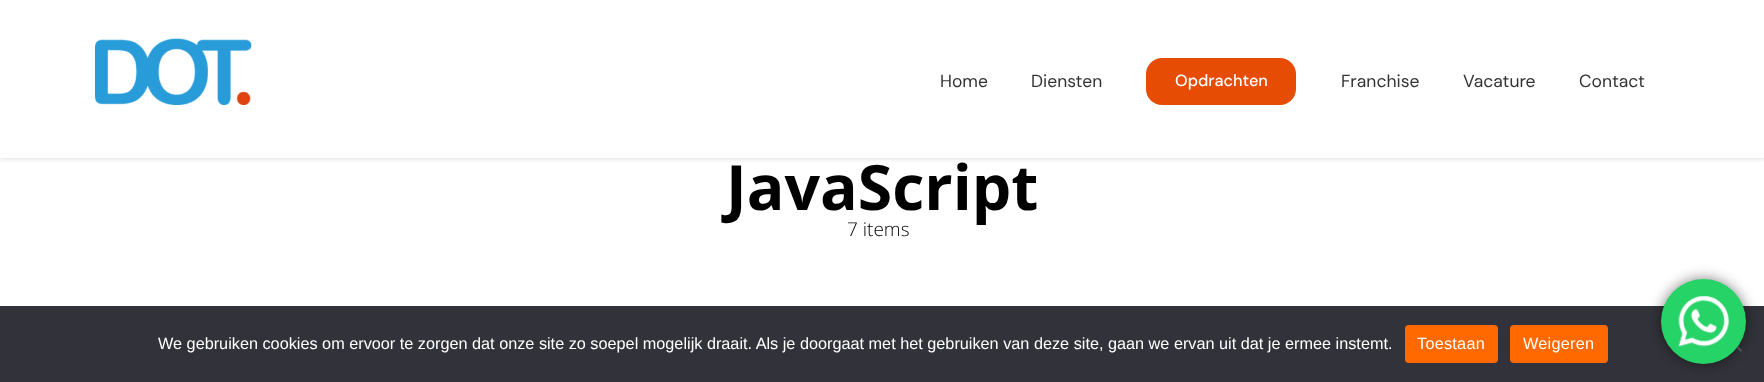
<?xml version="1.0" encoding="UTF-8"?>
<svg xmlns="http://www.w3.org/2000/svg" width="1764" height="382">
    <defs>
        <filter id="blur1" x="-50%" y="-200%" width="200%" height="500%"><feGaussianBlur stdDeviation="2"/></filter>
        <filter id="blur2" x="-50%" y="-200%" width="200%" height="500%"><feGaussianBlur stdDeviation="7"/></filter>
    </defs>
    <rect width="100%" height="100%" fill="#FFFFFF"/>
    <rect x="0" y="1" width="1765" height="158" fill="#000000" fill-opacity="0.12" filter="url(#blur1)"/>
    <rect x="0" y="0" width="1764" height="158" fill="#FFFFFF"/>
    <image x="95" y="38" width="157" height="67" href="img_01.png"/>
    <text x="940" y="87" font-family="DM Sans" font-size="17.5" fill="#333333">Home</text>
    <text x="1031" y="87" font-family="DM Sans" font-size="17.5" fill="#333333">Diensten</text>
    <rect x="1146" y="58" width="150" height="47" rx="16" fill="#E64C04"/>
    <text x="1175" y="86" font-family="DM Sans" font-size="16.25" font-weight="500" fill="#FFFFFF">Opdrachten</text>
    <text x="1341" y="87" font-family="DM Sans" font-size="17.5" fill="#333333">Franchise</text>
    <text x="1463" y="87" font-family="DM Sans" font-size="17.5" fill="#333333">Vacature</text>
    <text x="1579" y="87" font-family="DM Sans" font-size="17.5" fill="#333333">Contact</text>
    <text x="726" y="210" font-family="Open Sans" font-size="62.5" font-weight="700" fill="#000000">JavaScript</text>
    <text x="847" y="236" font-family="Open Sans" font-size="19" font-weight="300" fill="#000000">7 items</text>
    <rect x="0" y="306" width="1764" height="76" fill="#32323A"/>
    <text x="158" y="349" font-family="Liberation Sans" font-size="16.25" fill="#FFFFFF">We gebruiken cookies om ervoor te zorgen dat onze site zo soepel mogelijk draait. Als je doorgaat met het gebruiken van deze site, gaan we ervan uit dat je ermee instemt.</text>
    <rect x="1405" y="325" width="93" height="38" rx="4" fill="#FF6900"/>
    <text x="1417" y="349" font-family="Liberation Sans" font-size="16.25" letter-spacing="0.25" fill="#FFFFFF">Toestaan</text>
    <rect x="1510" y="325" width="98" height="38" rx="4" fill="#FF6900"/>
    <text x="1523" y="349" font-family="Liberation Sans" font-size="16.25" letter-spacing="0.25" fill="#FFFFFF">Weigeren</text>
    <path d="M 1727.5 339 L 1729.5 337 L 1742.5 350.5 L 1740.5 352 Z" fill="#59595D"/>
    <rect x="1661" y="279" width="85" height="85" rx="42.5" fill="#000000" fill-opacity="0.5" filter="url(#blur2)"/>
    <circle cx="1703.5" cy="321.5" r="42.5" fill="#25D366"/>
    <image x="1678" y="296" width="51" height="51" href="img_02.png"/>
</svg>
